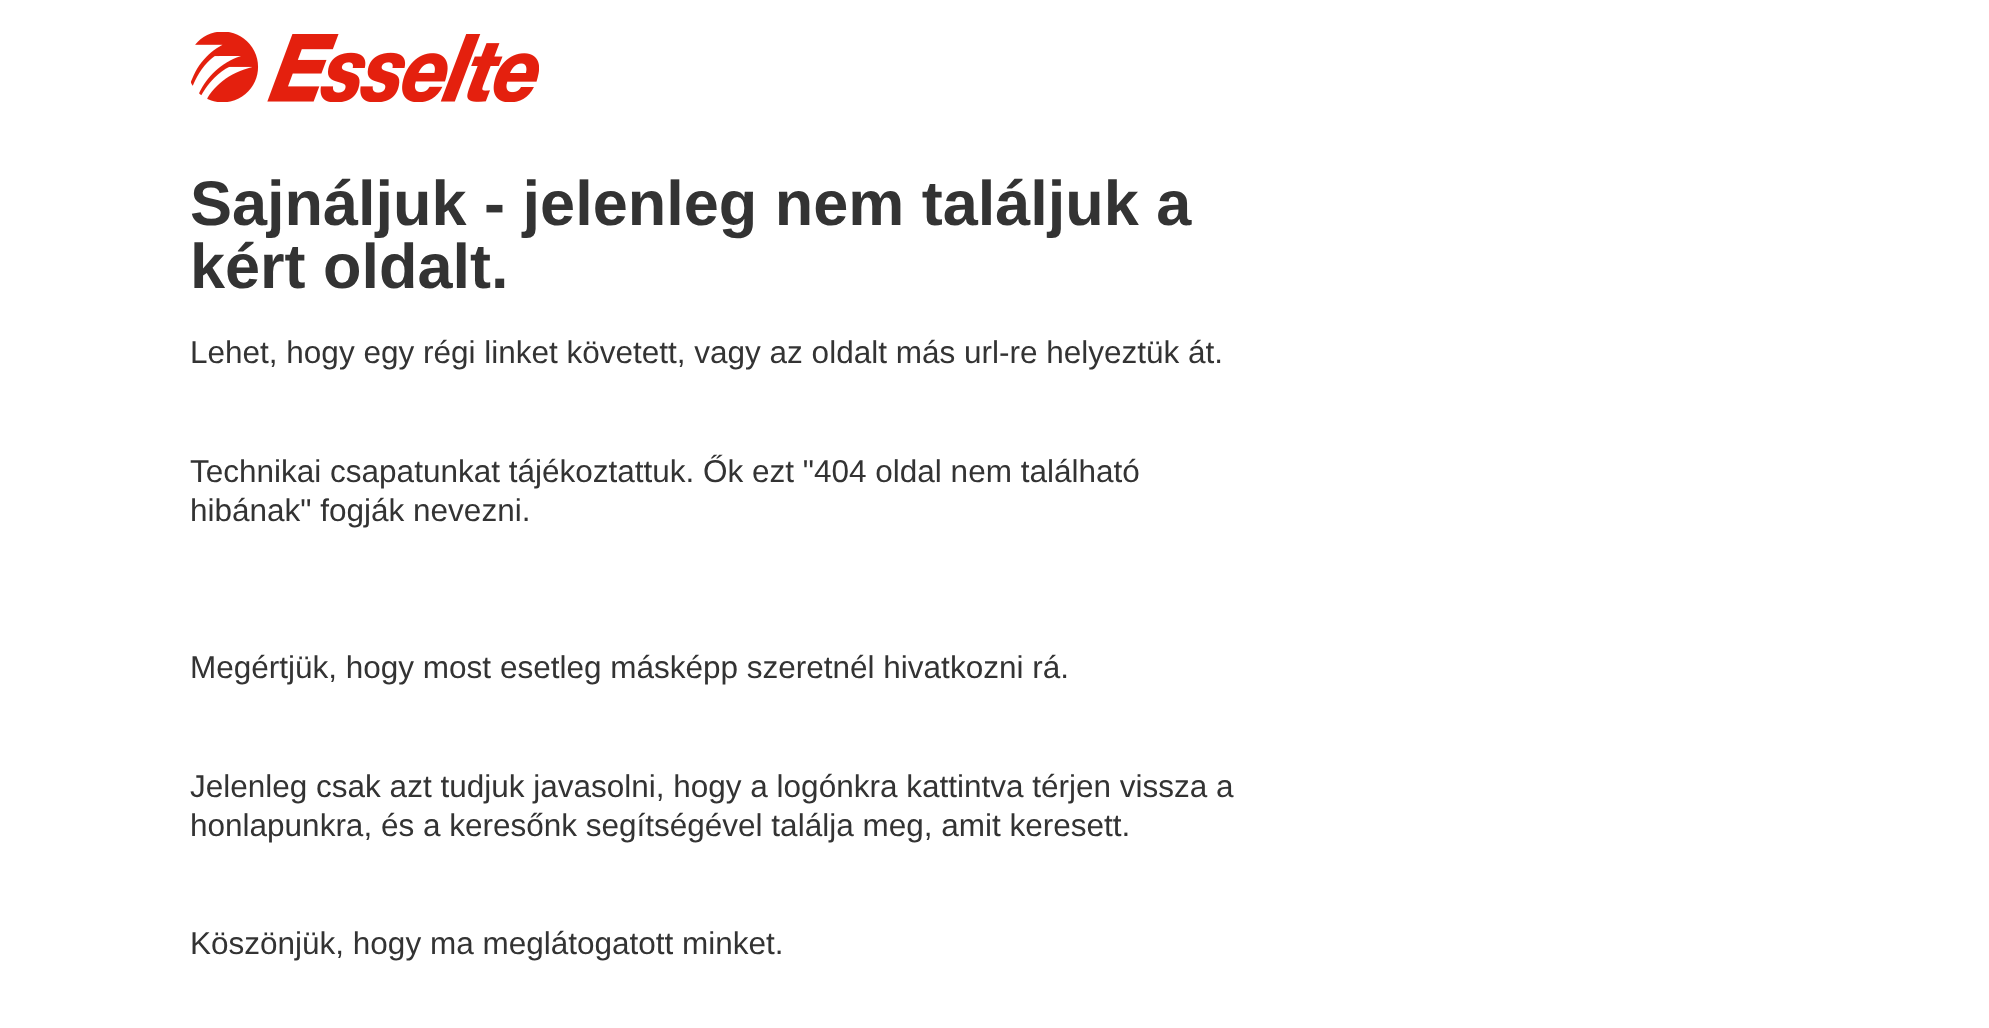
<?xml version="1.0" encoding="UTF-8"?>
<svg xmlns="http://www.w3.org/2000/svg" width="1989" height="1028">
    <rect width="100%" height="100%" fill="#FFFFFF"/>
    <image x="191" y="32" width="348" height="70" href="img_01.png"/>
    <text font-family="Liberation Sans" font-size="63" font-weight="700" fill="#333333">
        <tspan x="190" y="225">Sajnáljuk - jelenleg nem találjuk a</tspan>
        <tspan x="190" y="288">kért oldalt.</tspan>
    </text>
    <text x="190" y="363" font-family="Liberation Sans" font-size="31.5" fill="#333333">Lehet, hogy egy régi linket követett, vagy az oldalt más url-re helyeztük át.</text>
    <text font-family="Liberation Sans" font-size="31.5" fill="#333333">
        <tspan x="190" y="482">Technikai csapatunkat tájékoztattuk. Ők ezt "404 oldal nem található</tspan>
        <tspan x="190" y="521">hibának" fogják nevezni.</tspan>
    </text>
    <text x="190" y="678" font-family="Liberation Sans" font-size="31.5" fill="#333333">Megértjük, hogy most esetleg másképp szeretnél hivatkozni rá.</text>
    <text font-family="Liberation Sans" font-size="31.5" fill="#333333">
        <tspan x="190" y="797">Jelenleg csak azt tudjuk javasolni, hogy a logónkra kattintva térjen vissza a</tspan>
        <tspan x="190" y="836">honlapunkra, és a keresőnk segítségével találja meg, amit keresett.</tspan>
    </text>
    <text x="190" y="954" font-family="Liberation Sans" font-size="31.5" fill="#333333">Köszönjük, hogy ma meglátogatott minket.</text>
</svg>
